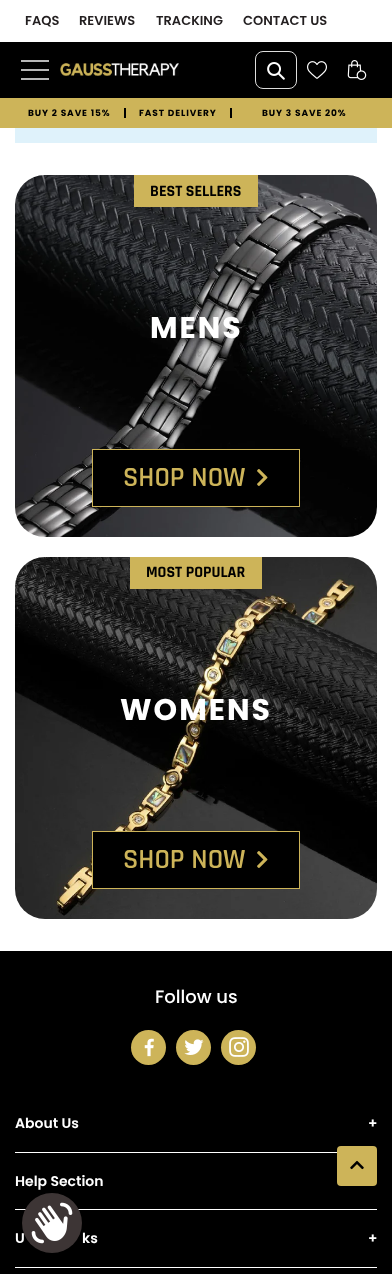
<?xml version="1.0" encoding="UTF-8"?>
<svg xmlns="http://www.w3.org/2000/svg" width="392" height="1274">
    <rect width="100%" height="100%" fill="#FFFFFF"/>
    <text x="25" y="25" font-family="Poppins" font-size="13" font-weight="600" fill="#231F20">FAQS</text>
    <text x="79" y="25" font-family="Poppins" font-size="13" font-weight="600" fill="#231F20">REVIEWS</text>
    <text x="156" y="25" font-family="Poppins" font-size="13" font-weight="600" fill="#231F20">TRACKING</text>
    <text x="243" y="25" font-family="Poppins" font-size="13" font-weight="600" fill="#231F20">CONTACT US</text>
    <rect x="0" y="42" width="392" height="56" fill="#000000"/>
    <rect x="21" y="60" width="28" height="2" fill="#B8B8B8"/>
    <rect x="21" y="69" width="28" height="2" fill="#B8B8B8"/>
    <rect x="21" y="78" width="28" height="2" fill="#B8B8B8"/>
    <rect x="60" y="63" width="119" height="13" fill="#030303"/>
    <image x="60" y="63" width="119" height="13" href="img_01.png"/>
    <rect x="255.5" y="51.5" width="41" height="37" rx="7.5" fill="none" stroke="#DEDEDD"/>
    <image x="267" y="62" width="18" height="18" href="img_02.png"/>
    <image x="307" y="61" width="20" height="18" href="img_03.png"/>
    <image x="347" y="60" width="20" height="20" href="img_04.png"/>
    <rect x="0" y="98" width="392" height="30" fill="#CDB459"/>
    <text x="28" y="116" font-family="Poppins" font-size="9" font-weight="700" letter-spacing="0.9" fill="#000000">BUY 2 SAVE 15%</text>
    <rect x="230" y="108" width="2" height="10" fill="#000000"/>
    <rect x="124" y="108" width="2" height="10" fill="#000000"/>
    <text x="139" y="116" font-family="Poppins" font-size="9" font-weight="700" letter-spacing="0.9" fill="#000000">FAST DELIVERY</text>
    <text x="262" y="116" font-family="Poppins" font-size="9" font-weight="700" letter-spacing="0.9" fill="#000000">BUY 3 SAVE 20%</text>
    <rect x="15" y="128" width="362" height="15" fill="#DFF2FB"/>
    <image x="15" y="175" width="362" height="362" href="img_05.png"/>
    <rect x="134" y="175" width="124" height="32" fill="#CDB459"/>
    <text x="150" y="196" font-family="Rajdhani" font-size="16" font-weight="700" fill="#000000">BEST SELLERS</text>
    <text x="150" y="338" font-family="Poppins" font-size="30" font-weight="700" letter-spacing="2" fill="#FFFFFF">MENS</text>
    <rect x="92.5" y="449.5" width="207" height="57" fill="#000000" stroke="#CDB459"/>
    <text x="123" y="486" font-family="Rajdhani" font-size="28" font-weight="600" fill="#CDB459">SHOP NOW</text>
    <image x="257" y="469" width="11" height="17" href="img_06.png"/>
    <image x="15" y="557" width="362" height="362" href="img_07.png"/>
    <rect x="130" y="557" width="132" height="32" fill="#CDB459"/>
    <text x="146" y="577" font-family="Rajdhani" font-size="16" font-weight="700" fill="#000000">MOST POPULAR</text>
    <text x="120" y="720" font-family="Poppins" font-size="30" font-weight="700" letter-spacing="2" fill="#FFFFFF">WOMENS</text>
    <rect x="92.5" y="831.5" width="207" height="57" fill="#000000" stroke="#CDB459"/>
    <text x="123" y="868" font-family="Rajdhani" font-size="28" font-weight="600" fill="#CDB459">SHOP NOW</text>
    <image x="257" y="851" width="11" height="17" href="img_06.png"/>
    <rect x="0" y="951" width="392" height="323" fill="#000000"/>
    <text x="155" y="1003" font-family="Poppins" font-size="18" font-weight="500" fill="#FFFFFF">Follow us</text>
    <circle cx="148.5" cy="1047.5" r="17.5" fill="#CDB459"/>
    <image x="144" y="1038" width="10" height="19" href="img_08.png"/>
    <circle cx="193.5" cy="1047.5" r="17.5" fill="#CDB459"/>
    <image x="184" y="1039" width="20" height="16" href="img_09.png"/>
    <circle cx="238.5" cy="1047.5" r="17.5" fill="#CDB459"/>
    <image x="229" y="1037" width="20" height="20" href="img_10.png"/>
    <rect x="15" y="1152" width="322" height="1" fill="#FFFFFF"/>
    <text x="15" y="1128" font-family="Poppins" font-size="14" font-weight="600" fill="#FFFFFF">About Us</text>
    <text x="368" y="1128" font-family="Poppins" font-size="14" font-weight="600" fill="#FFFFFF">+</text>
    <rect x="15" y="1209" width="362" height="1" fill="#FFFFFF"/>
    <text x="15" y="1186" font-family="Poppins" font-size="14" font-weight="600" fill="#FFFFFF">Help Section</text>
    <rect x="15" y="1267" width="362" height="1" fill="#FFFFFF"/>
    <text x="15" y="1243" font-family="Poppins" font-size="14" font-weight="600" fill="#FFFFFF">U</text>
    <text x="82" y="1243" font-family="Poppins" font-size="14" font-weight="600" fill="#FFFFFF">ks</text>
    <text x="368" y="1243" font-family="Poppins" font-size="14" font-weight="600" fill="#FFFFFF">+</text>
    <rect x="337" y="1146" width="40" height="40" rx="4" fill="#CDB459"/>
    <image x="350" y="1160" width="14" height="10" href="img_11.png"/>
    <circle cx="52" cy="1223" r="30" fill="#3D3535"/>
    <image x="31" y="1202" width="42" height="42" href="img_12.png"/>
</svg>
